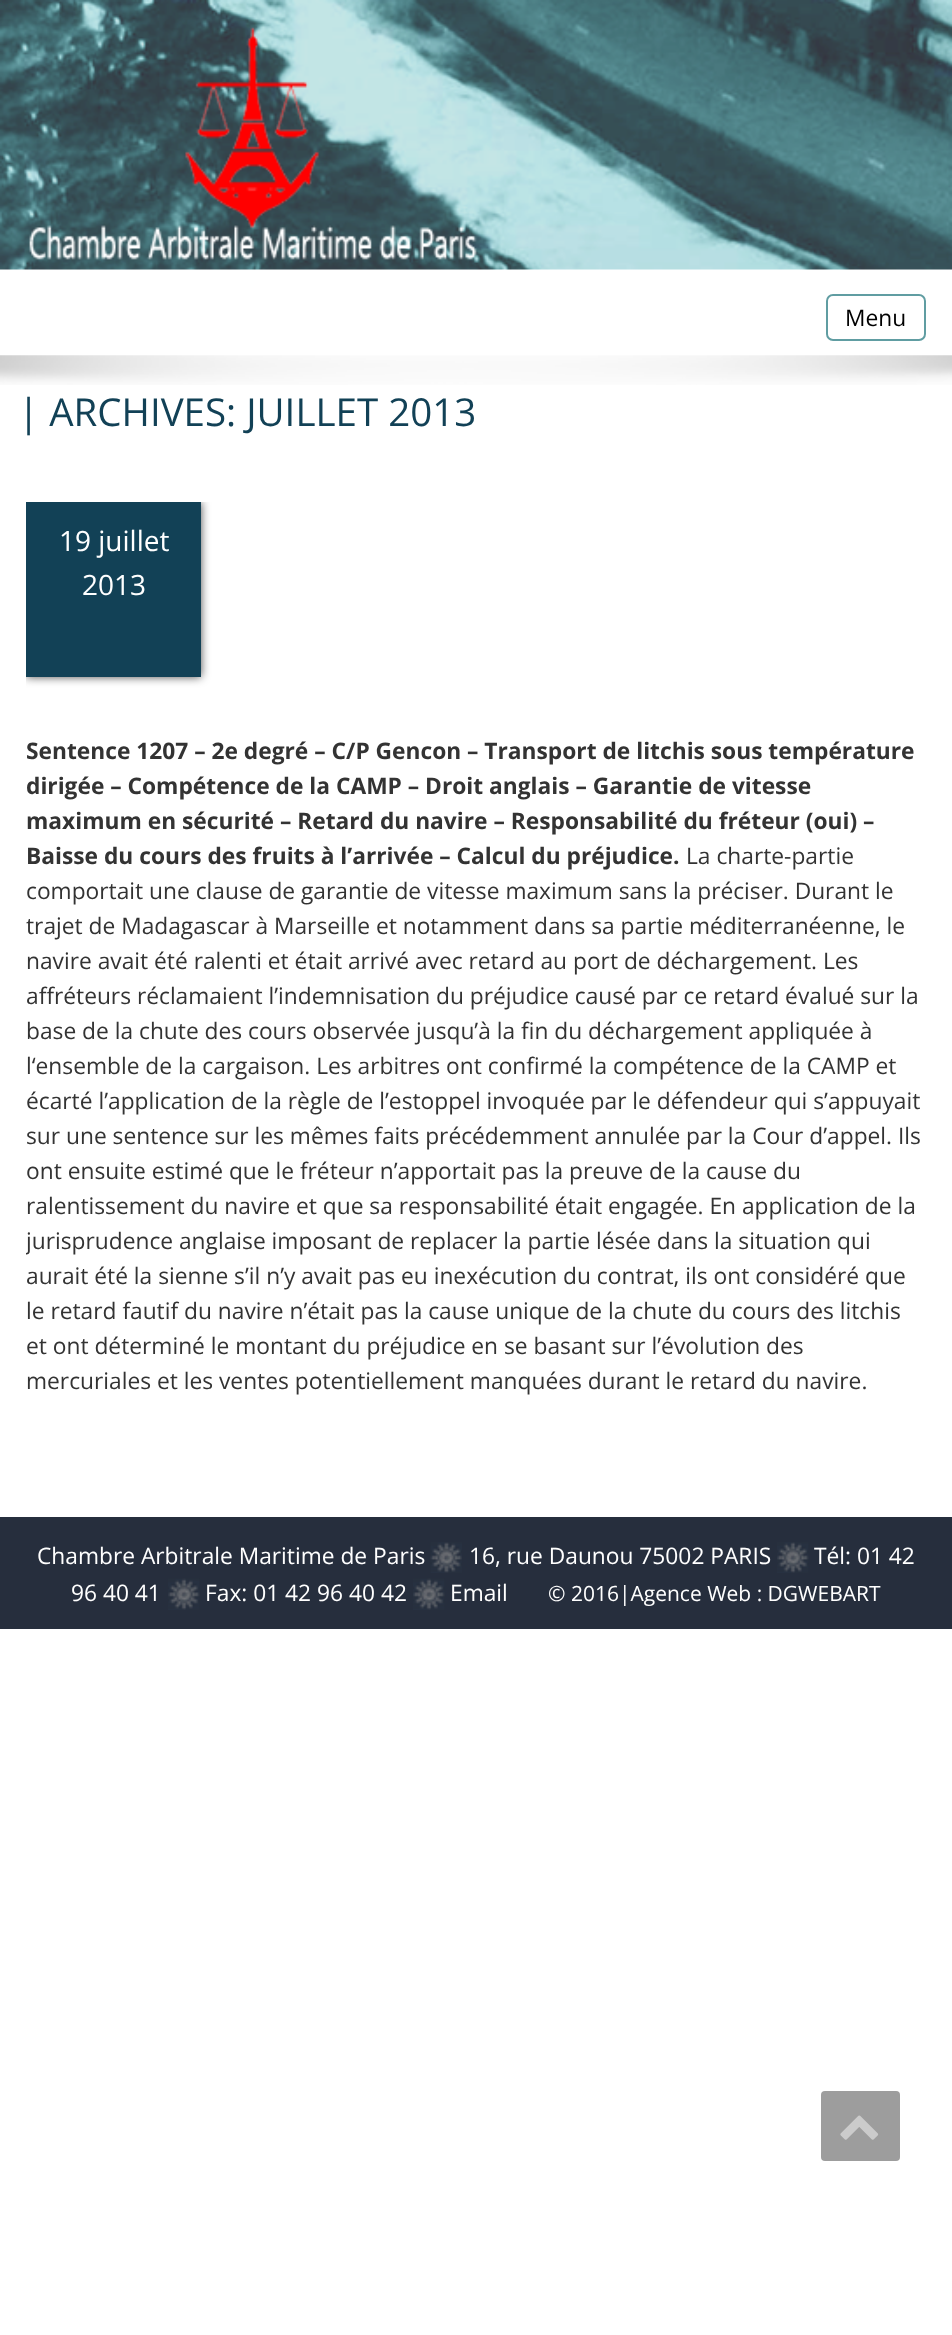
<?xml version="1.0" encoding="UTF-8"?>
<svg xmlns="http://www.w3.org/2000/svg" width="952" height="2335">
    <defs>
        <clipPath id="clip1"><rect x="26" y="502" width="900" height="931"/></clipPath>
        <filter id="blur1" x="-50%" y="-200%" width="200%" height="500%"><feGaussianBlur stdDeviation="5"/></filter>
        <clipPath id="clip2"><rect x="26" y="502" width="900" height="931"/></clipPath>
    </defs>
    <rect width="100%" height="100%" fill="#FFFFFF"/>
    <image x="0" y="0" width="952" height="270" href="img_01.png"/>
    <image x="29" y="27" width="448" height="233" href="img_02.png"/>
    <rect x="827" y="295" width="98" height="45" rx="6" fill="none" stroke="#609DA2" stroke-width="2"/>
    <text x="845" y="326" font-family="Open Sans" font-size="22.75" fill="#000000">Menu</text>
    <image x="0" y="355" width="952" height="30" href="img_03.png"/>
    <text x="18" y="426" font-family="Open Sans" font-size="38.5" fill="#124156">| ARCHIVES: JUILLET 2013</text>
    <g clip-path="url(#clip1)">
        <rect x="26" y="502" width="175" height="175" fill="#000000" fill-opacity="0.7" filter="url(#blur1)"/>
    </g>
    <rect x="26" y="502" width="175" height="175" fill="#124156"/>
    <text x="59" y="551" font-family="Open Sans" font-size="28" fill="#FFFFFF">19 juillet</text>
    <text x="82" y="595" font-family="Open Sans" font-size="28" fill="#FFFFFF">2013</text>
    <text font-family="Open Sans" font-size="22.75" font-weight="700" fill="#333333">
        <tspan x="26" y="759">Sentence 1207 – 2e degré – C/P Gencon – Transport de litchis sous température</tspan>
        <tspan x="26" y="794">dirigée – Compétence de la CAMP – Droit anglais – Garantie de vitesse</tspan>
        <tspan x="26" y="829">maximum en sécurité – Retard du navire – Responsabilité du fréteur (oui) –</tspan>
        <tspan x="26" y="864">Baisse du cours des fruits à l’arrivée – Calcul du préjudice.</tspan>
    </text>
    <text x="686" y="864" font-family="Open Sans" font-size="22.75" fill="#333333">La charte-partie</text>
    <text font-family="Open Sans" font-size="22.75" fill="#333333">
        <tspan x="26" y="899">comportait une clause de garantie de vitesse maximum sans la préciser. Durant le</tspan>
        <tspan x="26" y="934">trajet de Madagascar à Marseille et notamment dans sa partie méditerranéenne, le</tspan>
        <tspan x="26" y="969">navire avait été ralenti et était arrivé avec retard au port de déchargement. Les</tspan>
        <tspan x="26" y="1004">affréteurs réclamaient l’indemnisation du préjudice causé par ce retard évalué sur la</tspan>
        <tspan x="26" y="1039">base de la chute des cours observée jusqu’à la fin du déchargement appliquée à</tspan>
        <tspan x="26" y="1074">l‘ensemble de la cargaison. Les arbitres ont confirmé la compétence de la CAMP et</tspan>
        <tspan x="26" y="1109">écarté l’application de la règle de l’estoppel invoquée par le défendeur qui s’appuyait</tspan>
        <tspan x="26" y="1144">sur une sentence sur les mêmes faits précédemment annulée par la Cour d’appel. Ils</tspan>
        <tspan x="26" y="1179">ont ensuite estimé que le fréteur n’apportait pas la preuve de la cause du</tspan>
        <tspan x="26" y="1214">ralentissement du navire et que sa responsabilité était engagée. En application de la</tspan>
    </text>
    <g clip-path="url(#clip2)">
        <text x="26" y="1249" font-family="Open Sans" font-size="22.75" fill="#333333">jurisprudence anglaise imposant de replacer la partie lésée dans la situation qui</text>
    </g>
    <text font-family="Open Sans" font-size="22.75" fill="#333333">
        <tspan x="26" y="1284">aurait été la sienne s’il n’y avait pas eu inexécution du contrat, ils ont considéré que</tspan>
        <tspan x="26" y="1319">le retard fautif du navire n’était pas la cause unique de la chute du cours des litchis</tspan>
        <tspan x="26" y="1354">et ont déterminé le montant du préjudice en se basant sur l’évolution des</tspan>
        <tspan x="26" y="1389">mercuriales et les ventes potentiellement manquées durant le retard du navire.</tspan>
    </text>
    <rect x="0" y="1517" width="952" height="112" fill="#262E3D"/>
    <text x="37" y="1564" font-family="Open Sans" font-size="22.75" fill="#FFFFFF">Chambre Arbitrale Maritime de Paris</text>
    <image x="430" y="1542" width="32" height="31" href="img_04.png"/>
    <text x="469" y="1564" font-family="Open Sans" font-size="22.75" fill="#FFFFFF">16, rue Daunou 75002 PARIS</text>
    <image x="777" y="1542" width="32" height="31" href="img_05.png"/>
    <text x="814" y="1564" font-family="Open Sans" font-size="22.75" fill="#FFFFFF">Tél: 01 42</text>
    <text x="71" y="1601" font-family="Open Sans" font-size="22.75" fill="#FFFFFF">96 40 41</text>
    <image x="168" y="1578" width="32" height="32" href="img_06.png"/>
    <text x="205" y="1601" font-family="Open Sans" font-size="22.75" fill="#FFFFFF">Fax: 01 42 96 40 42</text>
    <image x="413" y="1578" width="32" height="32" href="img_06.png"/>
    <text x="450" y="1601" font-family="Open Sans" font-size="22.75" fill="#FFFFFF">Email</text>
    <text x="548" y="1601" font-family="Open Sans" font-size="21" fill="#FFFFFF">© 2016|Agence Web : DGWEBART</text>
    <rect x="821" y="2091" width="79" height="70" rx="4" fill="#9D9D9D"/>
    <image x="840" y="2115" width="39" height="25" href="img_07.png"/>
</svg>
